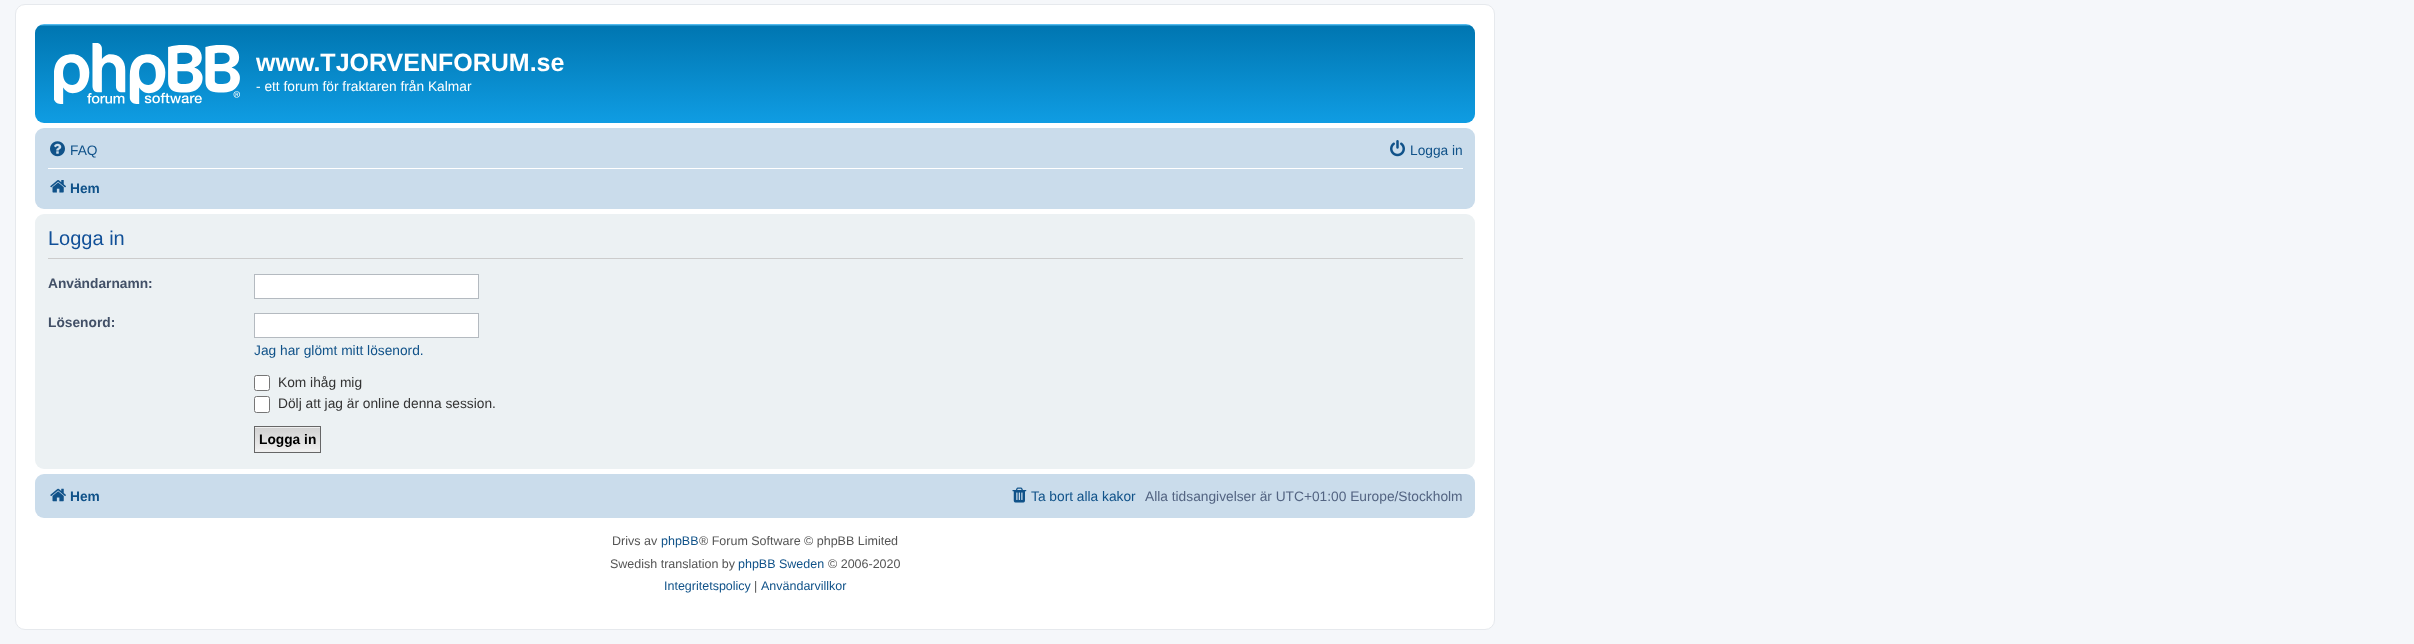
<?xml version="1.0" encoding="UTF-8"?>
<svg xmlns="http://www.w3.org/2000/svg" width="2414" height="644">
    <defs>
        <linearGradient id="g1" gradientUnits="userSpaceOnUse" x1="755" y1="24" x2="755" y2="139"><stop offset="0" stop-color="#6ACEFF"/><stop offset="0.02" stop-color="#0076B1"/><stop offset="1" stop-color="#12A3EB"/></linearGradient>
        <linearGradient id="g2" gradientUnits="userSpaceOnUse" x1="288" y1="428" x2="288" y2="451"><stop offset="0" stop-color="#D2D2D2"/><stop offset="1" stop-color="#EFEFEF"/></linearGradient>
    </defs>
    <rect width="100%" height="100%" fill="#F5F7FA"/>
    <rect x="15.5" y="4.5" width="1479" height="625" rx="9.5" fill="#FFFFFF" stroke="#E6E9ED"/>
    <rect x="35" y="24" width="1440" height="99" rx="9" fill="url(#g1)"/>
    <image x="54" y="43" width="186" height="61" href="img_01.png"/>
    <text x="256" y="71" font-family="Liberation Sans" font-size="25" font-weight="700" fill="#FFFFFF">www.TJORVENFORUM.se</text>
    <text x="256" y="91" font-family="Liberation Sans" font-size="13.75" fill="#FFFFFF">- ett forum för fraktaren från Kalmar</text>
    <rect x="35" y="128" width="1440" height="81" rx="9" fill="#CADCEB"/>
    <image x="50" y="141" width="15" height="16" href="img_02.png"/>
    <text x="70" y="155" font-family="Liberation Sans" font-size="13.75" fill="#105289">FAQ</text>
    <image x="1390" y="140" width="15" height="17" href="img_03.png"/>
    <text x="1410" y="155" font-family="Liberation Sans" font-size="13.75" fill="#105289">Logga in</text>
    <rect x="48" y="168" width="1415" height="1" fill="#FFFFFF"/>
    <image x="50" y="180" width="16" height="13" href="img_04.png"/>
    <text x="70" y="193" font-family="Liberation Sans" font-size="13.75" font-weight="700" fill="#105289">Hem</text>
    <rect x="35" y="214" width="1440" height="255" rx="9" fill="#ECF1F3"/>
    <rect x="48" y="258" width="1415" height="1" fill="#CCCCCC"/>
    <text x="48" y="245" font-family="Liberation Sans" font-size="20" fill="#115098">Logga in</text>
    <text x="48" y="288" font-family="Liberation Sans" font-size="13.75" font-weight="700" fill="#425067">Användarnamn:</text>
    <rect x="254.5" y="274.5" width="224" height="24" fill="#FFFFFF" stroke="#B4BAC0"/>
    <text x="48" y="327" font-family="Liberation Sans" font-size="13.75" font-weight="700" fill="#425067">Lösenord:</text>
    <rect x="254.5" y="313.5" width="224" height="24" fill="#FFFFFF" stroke="#B4BAC0"/>
    <text x="254" y="355" font-family="Liberation Sans" font-size="13.75" fill="#105289">Jag har glömt mitt lösenord.</text>
    <rect x="254.5" y="375.5" width="15" height="15" rx="2" fill="#FFFFFF" stroke="#767676"/>
    <text x="278" y="387" font-family="Liberation Sans" font-size="13.75" fill="#333333">Kom ihåg mig</text>
    <rect x="254.5" y="396.5" width="15" height="16" rx="2" fill="#FFFFFF" stroke="#767676"/>
    <text x="278" y="408" font-family="Liberation Sans" font-size="13.75" fill="#333333">Dölj att jag är online denna session.</text>
    <rect x="255" y="427" width="65" height="25" fill="#EFEFEF"/>
    <rect x="255" y="428" width="65" height="21" fill="url(#g2)"/>
    <rect x="254.5" y="426.5" width="66" height="26" fill="none" stroke="#666666"/>
    <text x="259" y="444" font-family="Liberation Sans" font-size="13.75" font-weight="700" fill="#000000">Logga in</text>
    <rect x="35" y="474" width="1440" height="44" rx="9" fill="#CADCEB"/>
    <image x="50" y="488" width="16" height="14" href="img_05.png"/>
    <text x="70" y="501" font-family="Liberation Sans" font-size="13.75" font-weight="700" fill="#105289">Hem</text>
    <image x="1012" y="487" width="15" height="16" href="img_06.png"/>
    <text x="1031" y="501" font-family="Liberation Sans" font-size="13.75" fill="#105289">Ta bort alla kakor</text>
    <text x="1145" y="501" font-family="Liberation Sans" font-size="13.75" fill="#536482">Alla tidsangivelser är UTC+01:00 Europe/Stockholm</text>
    <text x="612" y="545" font-family="Liberation Sans" font-size="12.5" fill="#555555">Drivs av</text>
    <text x="661" y="545" font-family="Liberation Sans" font-size="12.5" fill="#105289">phpBB</text>
    <text x="699" y="545" font-family="Liberation Sans" font-size="12.5" fill="#555555">® Forum Software © phpBB Limited</text>
    <text x="610" y="568" font-family="Liberation Sans" font-size="12.5" fill="#555555">Swedish translation by</text>
    <text x="738" y="568" font-family="Liberation Sans" font-size="12.5" fill="#105289">phpBB Sweden</text>
    <text x="828" y="568" font-family="Liberation Sans" font-size="12.5" fill="#555555">© 2006-2020</text>
    <text x="664" y="590" font-family="Liberation Sans" font-size="12.5" fill="#105289">Integritetspolicy</text>
    <text x="754" y="590" font-family="Liberation Sans" font-size="12.5" fill="#555555">|</text>
    <text x="761" y="590" font-family="Liberation Sans" font-size="12.5" fill="#105289">Användarvillkor</text>
</svg>
